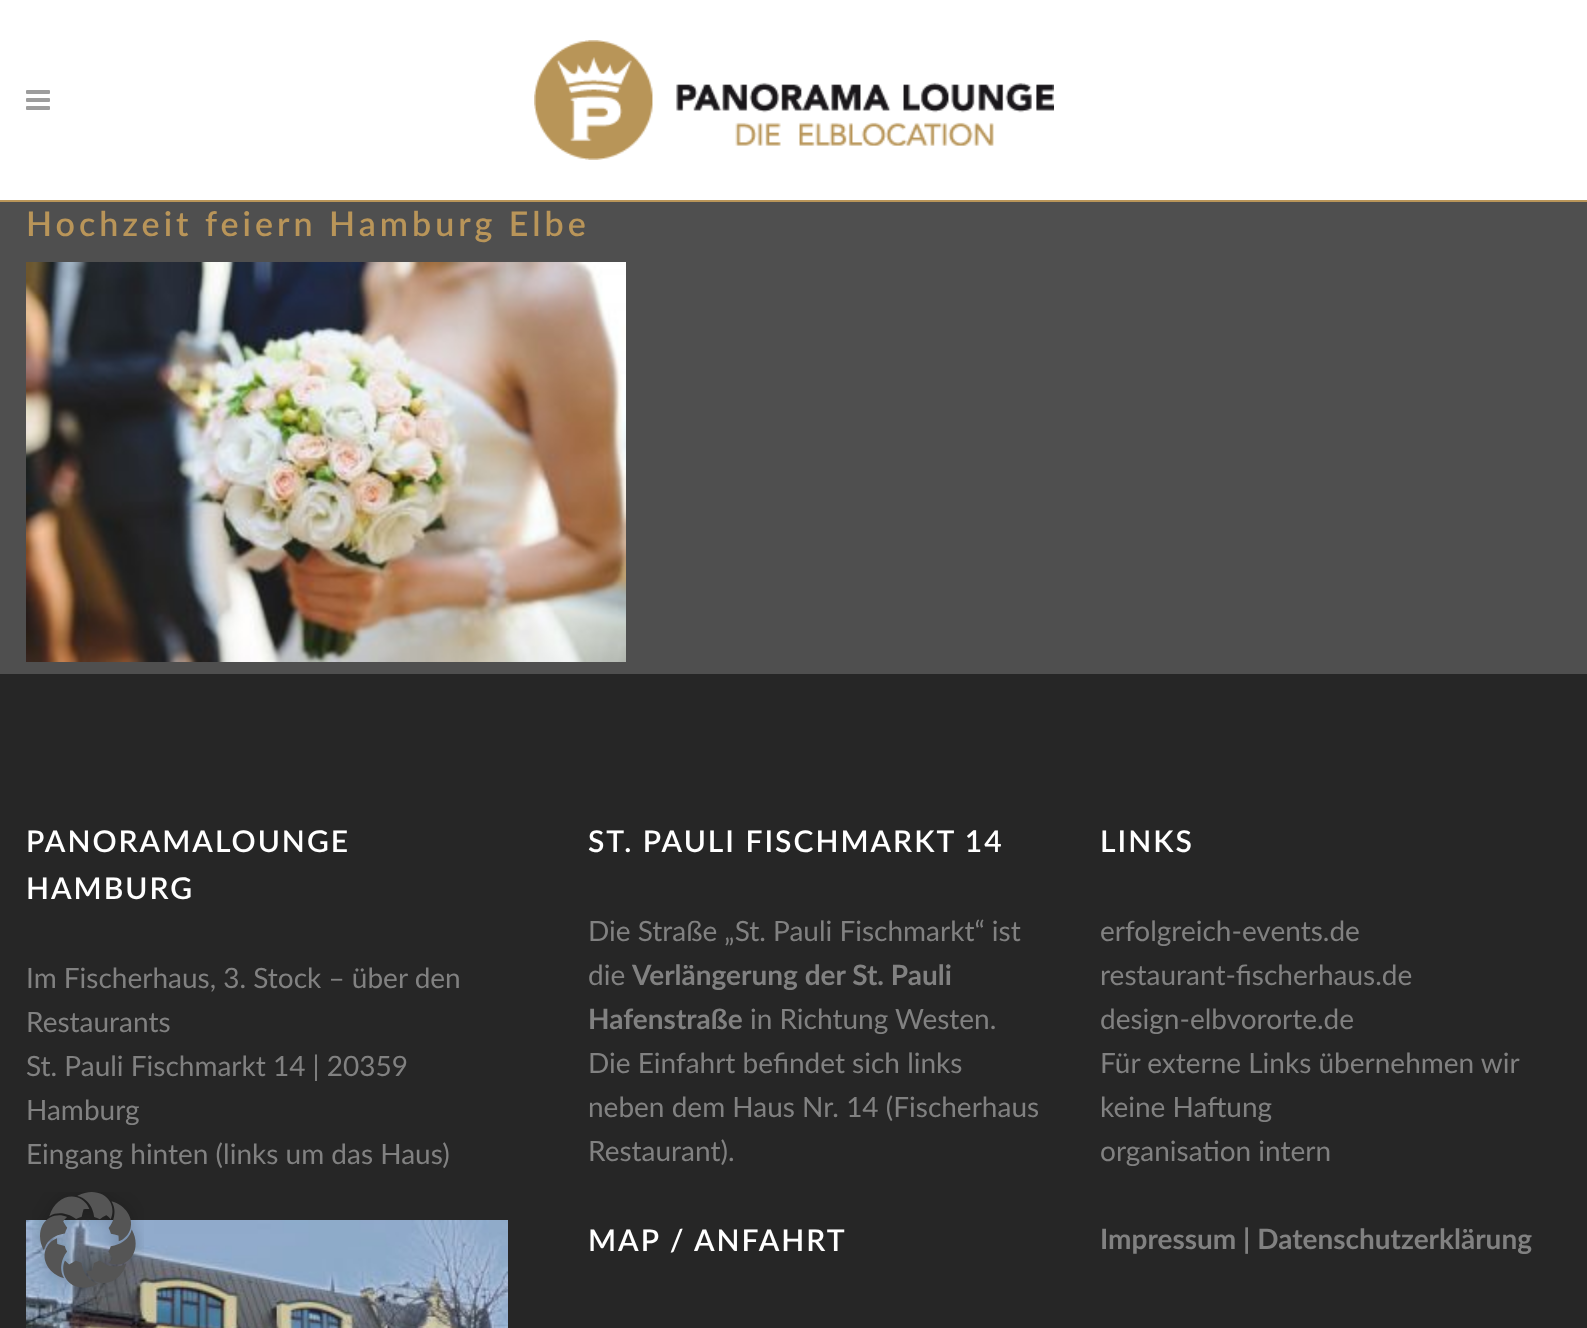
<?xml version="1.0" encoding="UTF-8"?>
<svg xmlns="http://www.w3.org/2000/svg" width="1587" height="1328">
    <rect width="100%" height="100%" fill="#4F4F4F"/>
    <rect x="0" y="0" width="1587" height="200" fill="#FFFFFF"/>
    <rect x="0" y="200" width="1587" height="2" fill="#B99559"/>
    <image x="26" y="90" width="24" height="20" href="img_01.png"/>
    <image x="534" y="40" width="520" height="120" href="img_02.png"/>
    <text x="26" y="236" font-family="Lato" font-size="34" font-weight="600" letter-spacing="4" fill="#B99559">Hochzeit feiern Hamburg Elbe</text>
    <image x="26" y="262" width="600" height="400" href="img_03.png"/>
    <rect x="0" y="674" width="1587" height="654" fill="#262626"/>
    <text font-family="Lato" font-size="30" font-weight="600" letter-spacing="2" fill="#FFFFFF">
        <tspan x="26" y="852">PANORAMALOUNGE</tspan>
        <tspan x="26" y="899">HAMBURG</tspan>
    </text>
    <text font-family="Lato" font-size="28" fill="#818181">
        <tspan x="26" y="988">Im Fischerhaus, 3. Stock – über den</tspan>
        <tspan x="26" y="1032">Restaurants</tspan>
        <tspan x="26" y="1076">St. Pauli Fischmarkt 14 | 20359</tspan>
        <tspan x="26" y="1120">Hamburg</tspan>
        <tspan x="26" y="1164">Eingang hinten (links um das Haus)</tspan>
    </text>
    <image x="26" y="1220" width="482" height="108" href="img_04.png"/>
    <text x="588" y="852" font-family="Lato" font-size="30" font-weight="600" letter-spacing="2" fill="#FFFFFF">ST. PAULI FISCHMARKT 14</text>
    <text font-family="Lato" font-size="28" fill="#818181">
        <tspan x="588" y="941">Die Straße „St. Pauli Fischmarkt“ ist</tspan>
        <tspan x="588" y="985">die</tspan>
    </text>
    <text x="632" y="985" font-family="Lato" font-size="28" font-weight="700" fill="#818181">Verlängerung der St. Pauli</text>
    <text x="588" y="1029" font-family="Lato" font-size="28" font-weight="700" fill="#818181">Hafenstraße</text>
    <text x="750" y="1029" font-family="Lato" font-size="28" fill="#818181">in Richtung Westen.</text>
    <text font-family="Lato" font-size="28" fill="#818181">
        <tspan x="588" y="1073">Die Einfahrt befindet sich links</tspan>
        <tspan x="588" y="1117">neben dem Haus Nr. 14 (Fischerhaus</tspan>
        <tspan x="588" y="1161">Restaurant).</tspan>
    </text>
    <text x="588" y="1251" font-family="Lato" font-size="30" font-weight="600" letter-spacing="2" fill="#FFFFFF">MAP / ANFAHRT</text>
    <text x="1100" y="852" font-family="Lato" font-size="30" font-weight="600" letter-spacing="2" fill="#FFFFFF">LINKS</text>
    <text font-family="Lato" font-size="28" fill="#818181">
        <tspan x="1100" y="941">erfolgreich-events.de</tspan>
        <tspan x="1100" y="985">restaurant-fischerhaus.de</tspan>
        <tspan x="1100" y="1029">design-elbvororte.de</tspan>
        <tspan x="1100" y="1073">Für externe Links übernehmen wir</tspan>
        <tspan x="1100" y="1117">keine Haftung</tspan>
        <tspan x="1100" y="1161">organisation intern</tspan>
    </text>
    <text x="1100" y="1249" font-family="Lato" font-size="28" font-weight="700" fill="#818181">Impressum | Datenschutzerklärung</text>
    <image x="32" y="1192" width="112" height="103" href="img_05.png"/>
</svg>
